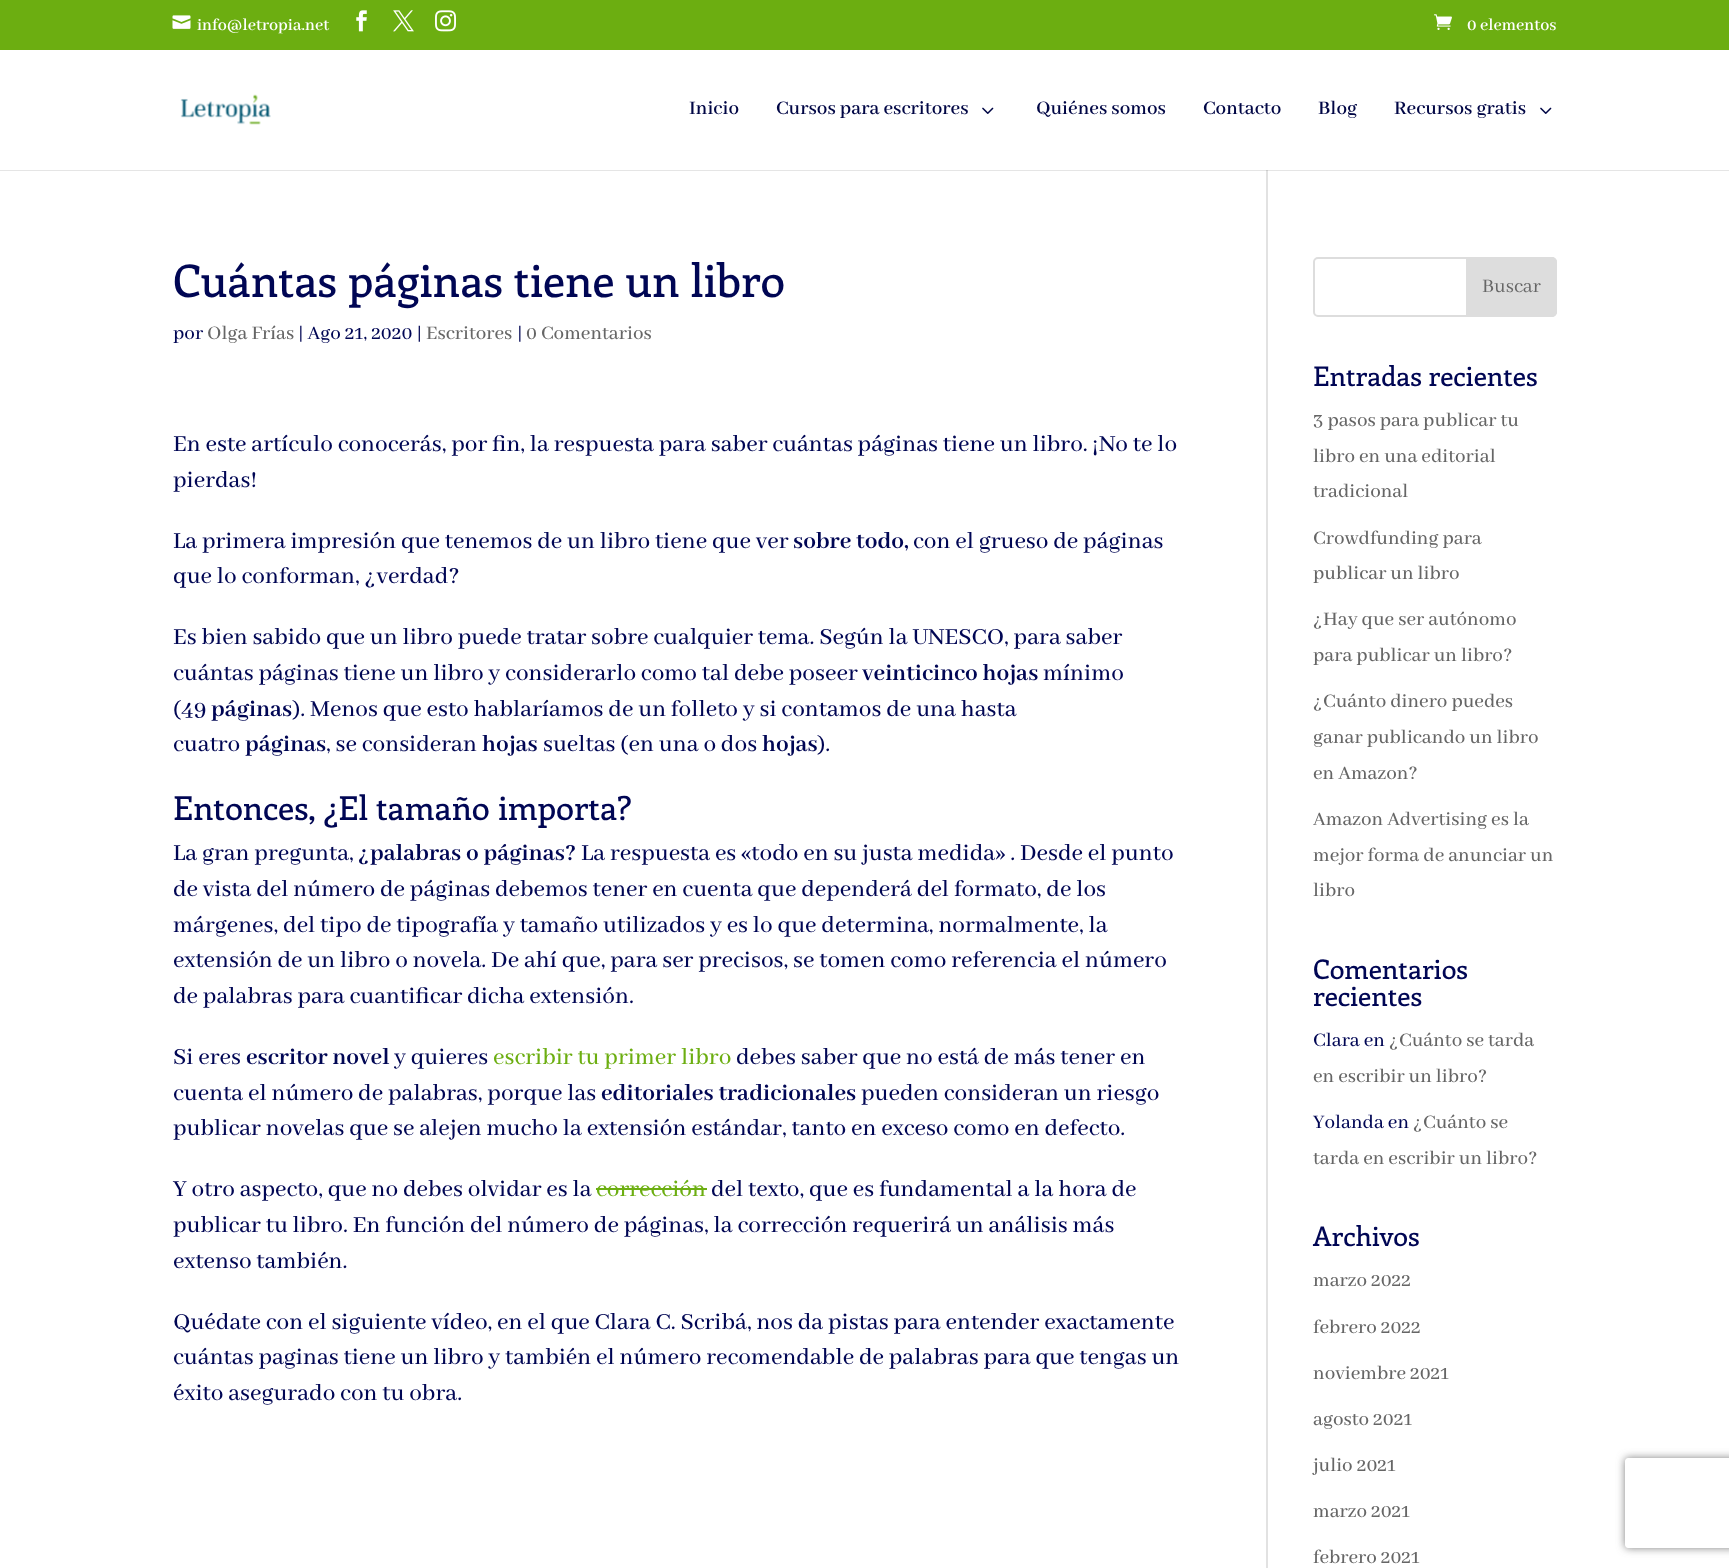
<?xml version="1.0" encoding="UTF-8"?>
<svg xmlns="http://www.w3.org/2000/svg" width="1729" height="1568">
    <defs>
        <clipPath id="clip1"><path d="M 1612 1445 H 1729 V 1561 H 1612 Z M 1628 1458 H 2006 C 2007.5 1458 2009 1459.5 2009 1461 V 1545 C 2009 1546.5 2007.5 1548 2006 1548 H 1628 C 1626.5 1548 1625 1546.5 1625 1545 V 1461 C 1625 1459.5 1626.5 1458 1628 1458 Z" clip-rule="evenodd"/></clipPath>
        <filter id="blur1" x="-50%" y="-200%" width="200%" height="500%"><feGaussianBlur stdDeviation="4"/></filter>
    </defs>
    <rect width="100%" height="100%" fill="#FFFFFF"/>
    <rect x="0" y="0" width="1729" height="50" fill="#6CAE11"/>
    <image x="172" y="15" width="19" height="14" href="img_01.png"/>
    <text x="197" y="30" font-family="Abhaya Libre SemiBold" font-size="18" font-weight="600" fill="#FFFFFF">info@letropia.net</text>
    <image x="356" y="10" width="11" height="22" href="img_02.png"/>
    <image x="393" y="10" width="21" height="22" href="img_03.png"/>
    <image x="435" y="10" width="21" height="22" href="img_04.png"/>
    <image x="1434" y="14" width="18" height="16" href="img_05.png"/>
    <text x="1467" y="30" font-family="Abhaya Libre SemiBold" font-size="18" font-weight="600" fill="#FFFFFF">0 elementos</text>
    <rect x="1266" y="170" width="2" height="1398" fill="#E2E2E2"/>
    <path d="M 0 170 V 171 H 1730 V 51 V 170 Z" fill="#000000" fill-opacity="0.1"/>
    <image x="180" y="94" width="91" height="31" href="img_06.png"/>
    <text x="689" y="114" font-family="Abhaya Libre SemiBold" font-size="21" font-weight="600" fill="#000645">Inicio</text>
    <text x="776" y="114" font-family="Abhaya Libre SemiBold" font-size="21" font-weight="600" fill="#000645">Cursos para escritores</text>
    <image x="982" y="107" width="12" height="7" href="img_07.png"/>
    <text x="1036" y="114" font-family="Abhaya Libre SemiBold" font-size="21" font-weight="600" fill="#000645">Quiénes somos</text>
    <text x="1203" y="114" font-family="Abhaya Libre SemiBold" font-size="21" font-weight="600" fill="#000645">Contacto</text>
    <text x="1318" y="114" font-family="Abhaya Libre SemiBold" font-size="21" font-weight="600" fill="#000645">Blog</text>
    <text x="1394" y="114" font-family="Abhaya Libre SemiBold" font-size="21" font-weight="600" fill="#000645">Recursos gratis</text>
    <image x="1540" y="107" width="12" height="7" href="img_07.png"/>
    <text x="173" y="297" font-family="Enriqueta" font-size="45" font-weight="500" fill="#000654">Cuántas páginas tiene un libro</text>
    <text x="173" y="339" font-family="Abhaya Libre Medium" font-size="21" font-weight="500" fill="#000654">por</text>
    <text x="207" y="339" font-family="Abhaya Libre Medium" font-size="21" font-weight="500" fill="#666666">Olga Frías</text>
    <text x="298" y="339" font-family="Abhaya Libre Medium" font-size="21" font-weight="500" fill="#000654">| Ago 21, 2020 |</text>
    <text x="426" y="339" font-family="Abhaya Libre Medium" font-size="21" font-weight="500" fill="#666666">Escritores</text>
    <text x="517" y="339" font-family="Abhaya Libre Medium" font-size="21" font-weight="500" fill="#000654">|</text>
    <text x="526" y="339" font-family="Abhaya Libre Medium" font-size="21" font-weight="500" fill="#666666">0 Comentarios</text>
    <text font-family="Abhaya Libre Medium" font-size="25.2" font-weight="500" fill="#000654">
        <tspan x="173" y="451">En este artículo conocerás, por fin, la respuesta para saber cuántas páginas tiene un libro. ¡No te lo</tspan>
        <tspan x="173" y="487">pierdas!</tspan>
    </text>
    <text x="173" y="548" font-family="Abhaya Libre Medium" font-size="25.2" font-weight="500" fill="#000654">La primera impresión que tenemos de un libro tiene que ver</text>
    <text x="793" y="548" font-family="Abhaya Libre" font-size="25.2" font-weight="700" fill="#000654">sobre todo,</text>
    <text x="913" y="548" font-family="Abhaya Libre Medium" font-size="25.2" font-weight="500" fill="#000654">con el grueso de páginas</text>
    <text x="173" y="583" font-family="Abhaya Libre Medium" font-size="25.2" font-weight="500" fill="#000654">que lo conforman, ¿verdad?</text>
    <text font-family="Abhaya Libre Medium" font-size="25.2" font-weight="500" fill="#000654">
        <tspan x="173" y="644">Es bien sabido que un libro puede tratar sobre cualquier tema. Según la UNESCO, para saber</tspan>
        <tspan x="173" y="680">cuántas páginas tiene un libro y considerarlo como tal debe poseer</tspan>
    </text>
    <text x="862" y="680" font-family="Abhaya Libre" font-size="25.2" font-weight="700" fill="#000654">veinticinco hojas</text>
    <text x="1043" y="680" font-family="Abhaya Libre Medium" font-size="25.2" font-weight="500" fill="#000654">mínimo</text>
    <text x="173" y="716" font-family="Abhaya Libre Medium" font-size="25.2" font-weight="500" fill="#000654">(49</text>
    <text x="211" y="716" font-family="Abhaya Libre" font-size="25.2" font-weight="700" fill="#000654">páginas</text>
    <text x="292" y="716" font-family="Abhaya Libre Medium" font-size="25.2" font-weight="500" fill="#000654">). Menos que esto hablaríamos de un folleto y si contamos de una hasta</text>
    <text x="173" y="751" font-family="Abhaya Libre Medium" font-size="25.2" font-weight="500" fill="#000654">cuatro</text>
    <text x="245" y="751" font-family="Abhaya Libre" font-size="25.2" font-weight="700" fill="#000654">páginas</text>
    <text x="326" y="751" font-family="Abhaya Libre Medium" font-size="25.2" font-weight="500" fill="#000654">, se consideran</text>
    <text x="482" y="751" font-family="Abhaya Libre" font-size="25.2" font-weight="700" fill="#000654">hojas</text>
    <text x="543" y="751" font-family="Abhaya Libre Medium" font-size="25.2" font-weight="500" fill="#000654">sueltas (en una o dos</text>
    <text x="762" y="751" font-family="Abhaya Libre" font-size="25.2" font-weight="700" fill="#000654">hojas</text>
    <text x="817" y="751" font-family="Abhaya Libre Medium" font-size="25.2" font-weight="500" fill="#000654">).</text>
    <text x="173" y="820" font-family="Enriqueta" font-size="33" font-weight="500" fill="#000654">Entonces, ¿El tamaño importa?</text>
    <text x="173" y="860" font-family="Abhaya Libre Medium" font-size="25.2" font-weight="500" fill="#000654">La gran pregunta,</text>
    <text x="358" y="860" font-family="Abhaya Libre" font-size="25.2" font-weight="700" fill="#000654">¿palabras o páginas?</text>
    <text x="581" y="860" font-family="Abhaya Libre Medium" font-size="25.2" font-weight="500" fill="#000654">La respuesta es «todo en su justa medida» . Desde el punto</text>
    <text font-family="Abhaya Libre Medium" font-size="25.2" font-weight="500" fill="#000654">
        <tspan x="173" y="896">de vista del número de páginas debemos tener en cuenta que dependerá del formato, de los</tspan>
        <tspan x="173" y="932">márgenes, del tipo de tipografía y tamaño utilizados y es lo que determina, normalmente, la</tspan>
        <tspan x="173" y="967">extensión de un libro o novela. De ahí que, para ser precisos, se tomen como referencia el número</tspan>
        <tspan x="173" y="1003">de palabras para cuantificar dicha extensión.</tspan>
    </text>
    <text x="173" y="1064" font-family="Abhaya Libre Medium" font-size="25.2" font-weight="500" fill="#000654">Si eres</text>
    <text x="246" y="1064" font-family="Abhaya Libre" font-size="25.2" font-weight="700" fill="#000654">escritor novel</text>
    <text x="394" y="1064" font-family="Abhaya Libre Medium" font-size="25.2" font-weight="500" fill="#000654">y quieres</text>
    <text x="493" y="1064" font-family="Abhaya Libre Medium" font-size="25.2" font-weight="500" fill="#6CAE11">escribir tu primer libro</text>
    <text x="736" y="1064" font-family="Abhaya Libre Medium" font-size="25.2" font-weight="500" fill="#000654">debes saber que no está de más tener en</text>
    <text x="173" y="1100" font-family="Abhaya Libre Medium" font-size="25.2" font-weight="500" fill="#000654">cuenta el número de palabras, porque las</text>
    <text x="601" y="1100" font-family="Abhaya Libre" font-size="25.2" font-weight="700" fill="#000654">editoriales tradicionales</text>
    <text x="861" y="1100" font-family="Abhaya Libre Medium" font-size="25.2" font-weight="500" fill="#000654">pueden consideran un riesgo</text>
    <text x="173" y="1135" font-family="Abhaya Libre Medium" font-size="25.2" font-weight="500" fill="#000654">publicar novelas que se alejen mucho la extensión estándar, tanto en exceso como en defecto.</text>
    <text x="173" y="1196" font-family="Abhaya Libre Medium" font-size="25.2" font-weight="500" fill="#000654">Y otro aspecto, que no debes olvidar es la</text>
    <text x="596" y="1196" font-family="Abhaya Libre Medium" font-size="25.2" font-weight="500" fill="#6CAE11">corrección</text>
    <rect x="596" y="1188" width="111" height="2" fill="#6CAE11"/>
    <text x="711" y="1196" font-family="Abhaya Libre Medium" font-size="25.2" font-weight="500" fill="#000654">del texto, que es fundamental a la hora de</text>
    <text font-family="Abhaya Libre Medium" font-size="25.2" font-weight="500" fill="#000654">
        <tspan x="173" y="1232">publicar tu libro. En función del número de páginas, la corrección requerirá un análisis más</tspan>
        <tspan x="173" y="1268">extenso también.</tspan>
    </text>
    <text font-family="Abhaya Libre Medium" font-size="25.2" font-weight="500" fill="#000654">
        <tspan x="173" y="1329">Quédate con el siguiente vídeo, en el que Clara C. Scribá, nos da pistas para entender exactamente</tspan>
        <tspan x="173" y="1364">cuántas paginas tiene un libro y también el número recomendable de palabras para que tengas un</tspan>
        <tspan x="173" y="1400">éxito asegurado con tu obra.</tspan>
    </text>
    <rect x="1314" y="258" width="242" height="58" rx="4" fill="none" stroke="#DDDDDD" stroke-width="2"/>
    <path d="M 1467 258 H 1552 C 1554 258 1556 260 1556 262 V 312 C 1556 314 1554 316 1552 316 H 1467 Z" fill="#DDDDDD" stroke="#DDDDDD" stroke-width="2"/>
    <text x="1482" y="292" font-family="Abhaya Libre" font-size="21" fill="#666666">Buscar</text>
    <text x="1313" y="386" font-family="Enriqueta" font-size="27" font-weight="500" fill="#000654">Entradas recientes</text>
    <text font-family="Abhaya Libre Medium" font-size="21" font-weight="500" fill="#666666">
        <tspan x="1313" y="426">3 pasos para publicar tu</tspan>
        <tspan x="1313" y="462">libro en una editorial</tspan>
        <tspan x="1313" y="497">tradicional</tspan>
    </text>
    <text font-family="Abhaya Libre Medium" font-size="21" font-weight="500" fill="#666666">
        <tspan x="1313" y="544">Crowdfunding para</tspan>
        <tspan x="1313" y="579">publicar un libro</tspan>
    </text>
    <text font-family="Abhaya Libre Medium" font-size="21" font-weight="500" fill="#666666">
        <tspan x="1313" y="625">¿Hay que ser autónomo</tspan>
        <tspan x="1313" y="661">para publicar un libro?</tspan>
    </text>
    <text font-family="Abhaya Libre Medium" font-size="21" font-weight="500" fill="#666666">
        <tspan x="1313" y="707">¿Cuánto dinero puedes</tspan>
        <tspan x="1313" y="743">ganar publicando un libro</tspan>
        <tspan x="1313" y="779">en Amazon?</tspan>
    </text>
    <text font-family="Abhaya Libre Medium" font-size="21" font-weight="500" fill="#666666">
        <tspan x="1313" y="825">Amazon Advertising es la</tspan>
        <tspan x="1313" y="861">mejor forma de anunciar un</tspan>
        <tspan x="1313" y="896">libro</tspan>
    </text>
    <text font-family="Enriqueta" font-size="27" font-weight="500" fill="#000654">
        <tspan x="1313" y="979">Comentarios</tspan>
        <tspan x="1313" y="1006">recientes</tspan>
    </text>
    <text x="1313" y="1046" font-family="Abhaya Libre Medium" font-size="21" font-weight="500" fill="#000654">Clara en</text>
    <text x="1389" y="1046" font-family="Abhaya Libre Medium" font-size="21" font-weight="500" fill="#666666">¿Cuánto se tarda</text>
    <text x="1313" y="1082" font-family="Abhaya Libre Medium" font-size="21" font-weight="500" fill="#666666">en escribir un libro?</text>
    <text x="1313" y="1128" font-family="Abhaya Libre Medium" font-size="21" font-weight="500" fill="#000654">Yolanda en</text>
    <text x="1413" y="1128" font-family="Abhaya Libre Medium" font-size="21" font-weight="500" fill="#666666">¿Cuánto se</text>
    <text x="1313" y="1164" font-family="Abhaya Libre Medium" font-size="21" font-weight="500" fill="#666666">tarda en escribir un libro?</text>
    <text x="1313" y="1246" font-family="Enriqueta" font-size="27" font-weight="500" fill="#000654">Archivos</text>
    <text x="1313" y="1286" font-family="Abhaya Libre Medium" font-size="21" font-weight="500" fill="#666666">marzo 2022</text>
    <text x="1313" y="1333" font-family="Abhaya Libre Medium" font-size="21" font-weight="500" fill="#666666">febrero 2022</text>
    <text x="1313" y="1379" font-family="Abhaya Libre Medium" font-size="21" font-weight="500" fill="#666666">noviembre 2021</text>
    <text x="1313" y="1425" font-family="Abhaya Libre Medium" font-size="21" font-weight="500" fill="#666666">agosto 2021</text>
    <text x="1313" y="1471" font-family="Abhaya Libre Medium" font-size="21" font-weight="500" fill="#666666">julio 2021</text>
    <text x="1313" y="1517" font-family="Abhaya Libre Medium" font-size="21" font-weight="500" fill="#666666">marzo 2021</text>
    <text x="1313" y="1563" font-family="Abhaya Libre Medium" font-size="21" font-weight="500" fill="#666666">febrero 2021</text>
    <g clip-path="url(#clip1)">
        <rect x="1625" y="1458" width="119" height="90" rx="3" fill="#808080" filter="url(#blur1)"/>
    </g>
</svg>
